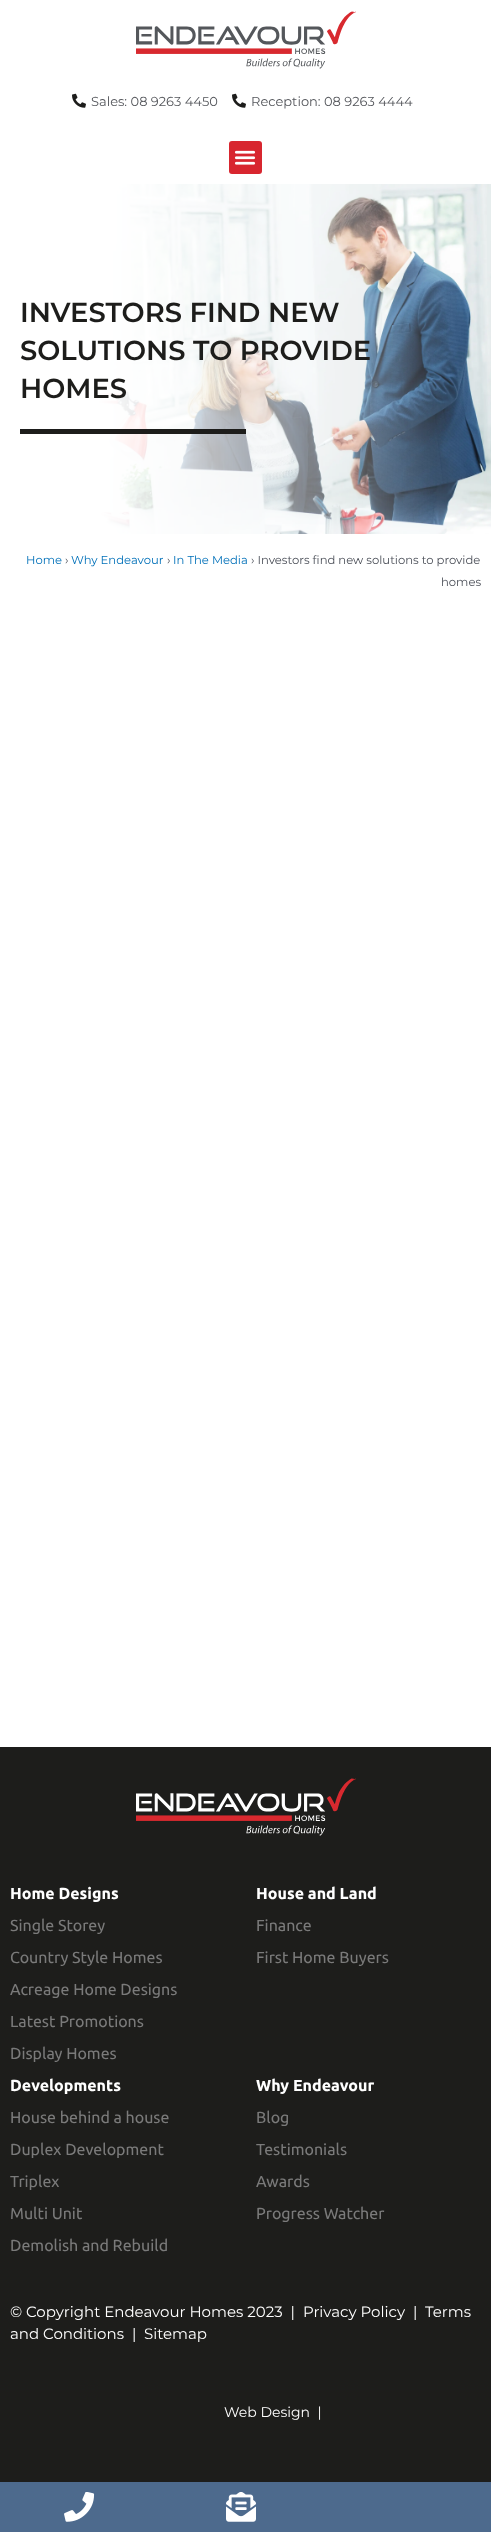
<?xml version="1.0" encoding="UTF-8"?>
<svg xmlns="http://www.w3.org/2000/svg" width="491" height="2532">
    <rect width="100%" height="100%" fill="#FFFFFF"/>
    <image x="136" y="11" width="220" height="58" href="img_01.png"/>
    <image x="72" y="93" width="14" height="15" href="img_02.png"/>
    <text x="91" y="106" font-family="Montserrat" font-size="13" fill="#54565B">Sales: 08 9263 4450</text>
    <image x="232" y="93" width="14" height="15" href="img_02.png"/>
    <text x="251" y="106" font-family="Montserrat" font-size="13" fill="#54565B">Reception: 08 9263 4444</text>
    <rect x="229" y="141" width="33" height="33" rx="3" fill="#D8262F"/>
    <image x="234" y="150" width="22" height="15" href="img_03.png"/>
    <image x="0" y="184" width="491" height="350" href="img_04.png"/>
    <text font-family="Montserrat" font-size="27.4" font-weight="600" fill="#1D1D1B">
        <tspan x="20" y="322">INVESTORS FIND NEW</tspan>
        <tspan x="20" y="360">SOLUTIONS TO PROVIDE</tspan>
        <tspan x="20" y="398">HOMES</tspan>
    </text>
    <rect x="20" y="429" width="226" height="5" fill="#1D1D1B"/>
    <text x="26" y="564" font-family="Montserrat" font-size="11.6" fill="#0170B9">Home</text>
    <text x="65" y="564" font-family="Montserrat" font-size="11.6" fill="#4B4F58">›</text>
    <text x="71" y="564" font-family="Montserrat" font-size="11.6" fill="#0170B9">Why Endeavour</text>
    <text x="167" y="564" font-family="Montserrat" font-size="11.6" fill="#4B4F58">›</text>
    <text x="173" y="564" font-family="Montserrat" font-size="11.6" fill="#0170B9">In The Media</text>
    <text x="251" y="564" font-family="Montserrat" font-size="11.6" fill="#4B4F58">› Investors find new solutions to provide</text>
    <text x="441" y="586" font-family="Montserrat" font-size="11.6" fill="#4B4F58">homes</text>
    <rect x="0" y="1747" width="491" height="735" fill="#1D1D1B"/>
    <image x="136" y="1778" width="220" height="58" href="img_05.png"/>
    <text x="10" y="1899" font-family="Ubuntu" font-size="16" font-weight="700" fill="#FFFFFF">Home Designs</text>
    <text x="10" y="1931" font-family="Ubuntu" font-size="16" fill="#7A7A7A">Single Storey</text>
    <text x="10" y="1963" font-family="Ubuntu" font-size="16" fill="#7A7A7A">Country Style Homes</text>
    <text x="10" y="1995" font-family="Ubuntu" font-size="16" fill="#7A7A7A">Acreage Home Designs</text>
    <text x="10" y="2027" font-family="Ubuntu" font-size="16" fill="#7A7A7A">Latest Promotions</text>
    <text x="10" y="2059" font-family="Ubuntu" font-size="16" fill="#7A7A7A">Display Homes</text>
    <text x="256" y="1899" font-family="Ubuntu" font-size="16" font-weight="700" fill="#FFFFFF">House and Land</text>
    <text x="256" y="1931" font-family="Ubuntu" font-size="16" fill="#7A7A7A">Finance</text>
    <text x="256" y="1963" font-family="Ubuntu" font-size="16" fill="#7A7A7A">First Home Buyers</text>
    <text x="10" y="2091" font-family="Ubuntu" font-size="16" font-weight="700" fill="#FFFFFF">Developments</text>
    <text x="10" y="2123" font-family="Ubuntu" font-size="16" fill="#7A7A7A">House behind a house</text>
    <text x="10" y="2155" font-family="Ubuntu" font-size="16" fill="#7A7A7A">Duplex Development</text>
    <text x="10" y="2187" font-family="Ubuntu" font-size="16" fill="#7A7A7A">Triplex</text>
    <text x="10" y="2219" font-family="Ubuntu" font-size="16" fill="#7A7A7A">Multi Unit</text>
    <text x="10" y="2251" font-family="Ubuntu" font-size="16" fill="#7A7A7A">Demolish and Rebuild</text>
    <text x="256" y="2091" font-family="Ubuntu" font-size="16" font-weight="700" fill="#FFFFFF">Why Endeavour</text>
    <text x="256" y="2123" font-family="Ubuntu" font-size="16" fill="#7A7A7A">Blog</text>
    <text x="256" y="2155" font-family="Ubuntu" font-size="16" fill="#7A7A7A">Testimonials</text>
    <text x="256" y="2187" font-family="Ubuntu" font-size="16" fill="#7A7A7A">Awards</text>
    <text x="256" y="2219" font-family="Ubuntu" font-size="16" fill="#7A7A7A">Progress Watcher</text>
    <text x="10" y="2317" font-family="Montserrat" font-size="15" fill="#FFFFFF" xml:space="preserve">© Copyright Endeavour Homes 2023  |</text>
    <text x="303" y="2317" font-family="Montserrat" font-size="15" fill="#FFFFFF">Privacy Policy</text>
    <text x="413" y="2317" font-family="Montserrat" font-size="15" fill="#FFFFFF">|</text>
    <text x="425" y="2317" font-family="Montserrat" font-size="15" fill="#FFFFFF">Terms</text>
    <text x="10" y="2339" font-family="Montserrat" font-size="15" fill="#FFFFFF">and Conditions</text>
    <text x="132" y="2339" font-family="Montserrat" font-size="15" fill="#FFFFFF">|</text>
    <text x="144" y="2339" font-family="Montserrat" font-size="15" fill="#FFFFFF">Sitemap</text>
    <text x="224" y="2417" font-family="Montserrat" font-size="14" fill="#FFFFFF" xml:space="preserve">Web Design  |</text>
    <rect x="0" y="2482" width="491" height="50" fill="#4D6A8D"/>
    <image x="64" y="2492" width="31" height="30" href="img_06.png"/>
    <image x="226" y="2492" width="30" height="30" href="img_07.png"/>
</svg>
